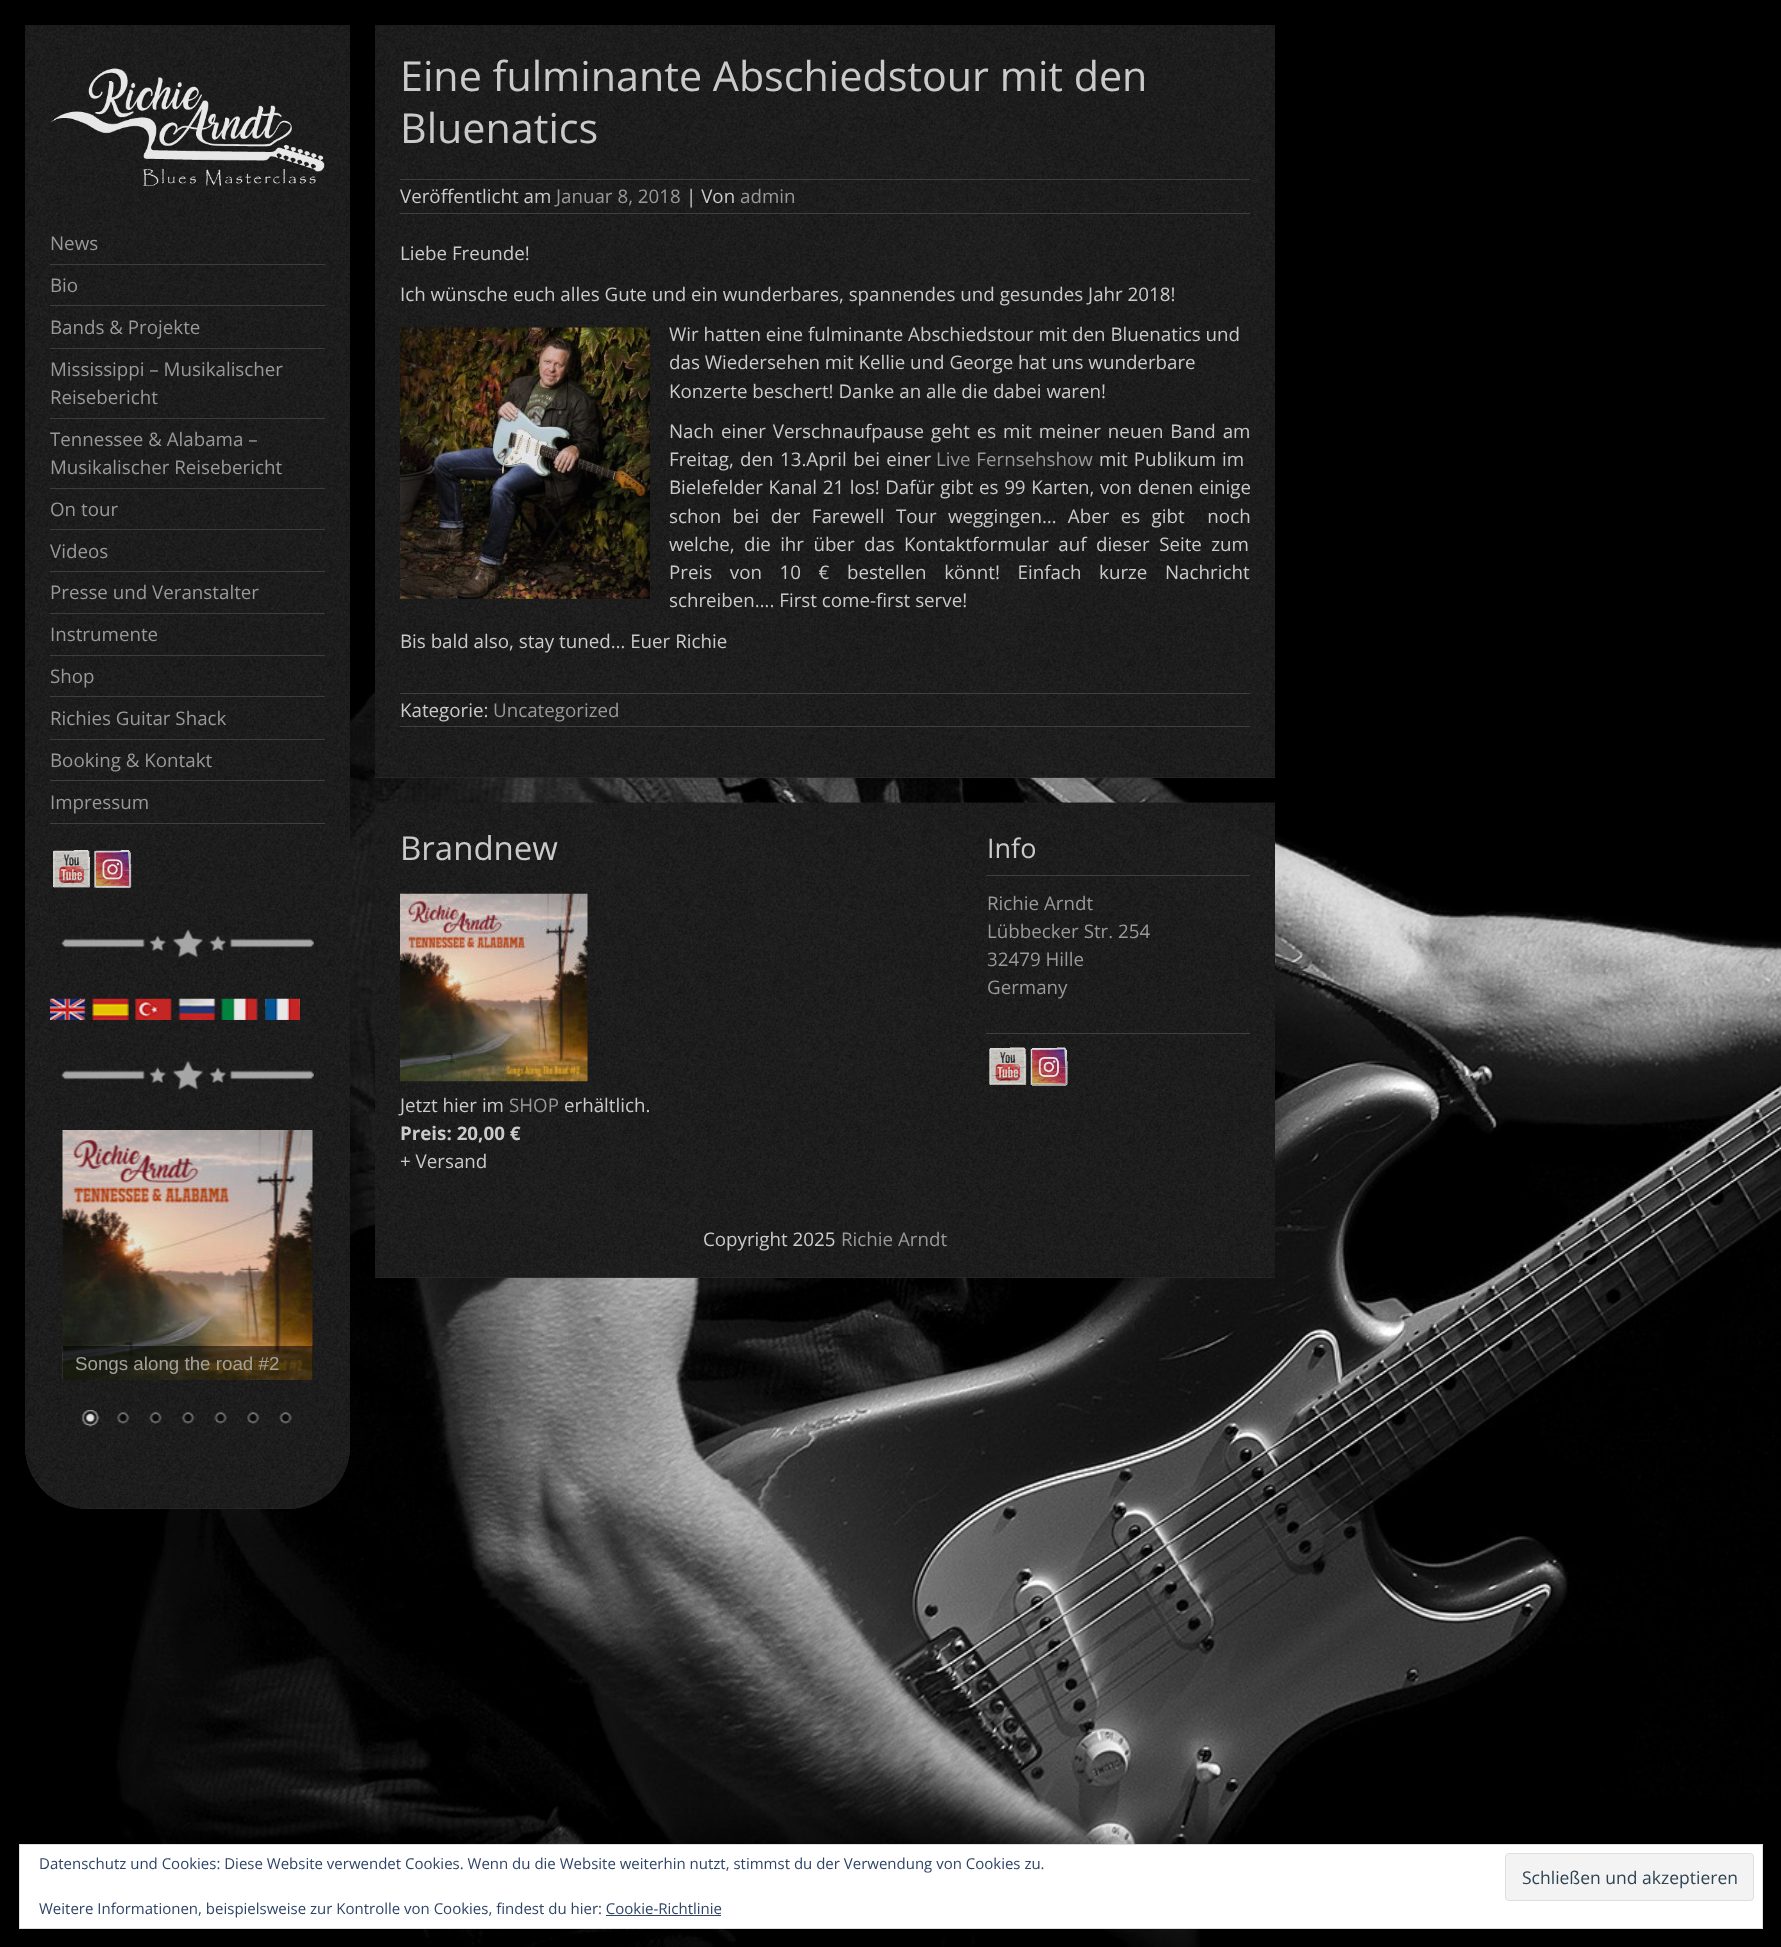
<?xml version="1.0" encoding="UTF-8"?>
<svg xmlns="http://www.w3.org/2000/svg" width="1781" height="1947">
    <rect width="100%" height="100%" fill="#FFFFFF"/>
    <image x="0" y="0" width="1781" height="1947" href="img_01.png"/>
    <path d="M 25 25 H 350 V 1446 C 350 1481 322 1509 287 1509 H 88 C 53 1509 25 1481 25 1446 Z" fill="#333333" fill-opacity="0.9"/>
    <image x="25" y="25" width="325" height="1484" href="img_02.png"/>
    <image x="51" y="68" width="274" height="119" href="img_03.png"/>
    <rect x="50" y="264" width="275" height="1" fill="#3D3D3D"/>
    <text x="50" y="250" font-family="Open Sans" font-size="18.75" fill="#999999">News</text>
    <rect x="50" y="305" width="275" height="1" fill="#3D3D3D"/>
    <text x="50" y="292" font-family="Open Sans" font-size="18.75" fill="#999999">Bio</text>
    <rect x="50" y="348" width="275" height="1" fill="#3D3D3D"/>
    <text x="50" y="334" font-family="Open Sans" font-size="18.75" fill="#999999">Bands &amp; Projekte</text>
    <rect x="50" y="418" width="275" height="1" fill="#3D3D3D"/>
    <text font-family="Open Sans" font-size="18.75" fill="#999999">
        <tspan x="50" y="376">Mississippi – Musikalischer</tspan>
        <tspan x="50" y="404">Reisebericht</tspan>
    </text>
    <rect x="50" y="488" width="275" height="1" fill="#3D3D3D"/>
    <text font-family="Open Sans" font-size="18.75" fill="#999999">
        <tspan x="50" y="446">Tennessee &amp; Alabama –</tspan>
        <tspan x="50" y="474">Musikalischer Reisebericht</tspan>
    </text>
    <rect x="50" y="529" width="275" height="1" fill="#3D3D3D"/>
    <text x="50" y="516" font-family="Open Sans" font-size="18.75" fill="#999999">On tour</text>
    <rect x="50" y="571" width="275" height="1" fill="#3D3D3D"/>
    <text x="50" y="558" font-family="Open Sans" font-size="18.75" fill="#999999">Videos</text>
    <rect x="50" y="613" width="275" height="1" fill="#3D3D3D"/>
    <text x="50" y="599" font-family="Open Sans" font-size="18.75" fill="#999999">Presse und Veranstalter</text>
    <rect x="50" y="655" width="275" height="1" fill="#3D3D3D"/>
    <text x="50" y="641" font-family="Open Sans" font-size="18.75" fill="#999999">Instrumente</text>
    <rect x="50" y="696" width="275" height="1" fill="#3D3D3D"/>
    <text x="50" y="683" font-family="Open Sans" font-size="18.75" fill="#999999">Shop</text>
    <rect x="50" y="739" width="275" height="1" fill="#3D3D3D"/>
    <text x="50" y="725" font-family="Open Sans" font-size="18.75" fill="#999999">Richies Guitar Shack</text>
    <rect x="50" y="780" width="275" height="1" fill="#444444" fill-opacity="0.9"/>
    <text x="50" y="767" font-family="Open Sans" font-size="18.75" fill="#999999">Booking &amp; Kontakt</text>
    <rect x="50" y="823" width="275" height="1" fill="#444444" fill-opacity="0.9"/>
    <text x="50" y="809" font-family="Open Sans" font-size="18.75" fill="#999999">Impressum</text>
    <image x="53" y="850" width="37" height="38" href="img_04.png"/>
    <image x="94" y="850" width="38" height="38" href="img_05.png"/>
    <image x="61" y="929" width="253" height="29" href="img_06.png"/>
    <image x="50" y="998" width="250" height="22" href="img_07.png"/>
    <image x="61" y="1060" width="253" height="31" href="img_08.png"/>
    <image x="62" y="1130" width="251" height="250" href="img_09.png"/>
    <rect x="63" y="1346" width="250" height="34" fill="#000000" fill-opacity="0.56"/>
    <text x="75" y="1370" font-family="Liberation Sans" font-size="18.75" fill="#A4A198">Songs along the road #2</text>
    <image x="81" y="1409" width="19" height="18" href="img_10.png"/>
    <image x="117" y="1412" width="13" height="12" href="img_11.png"/>
    <image x="149" y="1412" width="13" height="12" href="img_12.png"/>
    <image x="182" y="1412" width="13" height="12" href="img_13.png"/>
    <image x="214" y="1412" width="13" height="12" href="img_14.png"/>
    <image x="247" y="1412" width="13" height="12" href="img_15.png"/>
    <image x="279" y="1412" width="13" height="12" href="img_16.png"/>
    <rect x="375" y="25" width="900" height="753" fill="#333333" fill-opacity="0.9"/>
    <image x="375" y="25" width="900" height="753" href="img_17.png"/>
    <text font-family="Open Sans" font-size="41.25" fill="#CACACA">
        <tspan x="400" y="91">Eine fulminante Abschiedstour mit den</tspan>
        <tspan x="400" y="143">Bluenatics</tspan>
    </text>
    <rect x="400" y="179" width="850" height="1" fill="#444444" fill-opacity="0.9"/>
    <rect x="400" y="213" width="850" height="1" fill="#444444" fill-opacity="0.9"/>
    <text x="400" y="203" font-family="Open Sans" font-size="18.75" fill="#CACACA">Veröffentlicht am</text>
    <text x="556" y="203" font-family="Open Sans" font-size="18.75" fill="#999999">Januar 8, 2018</text>
    <text x="686" y="203" font-family="Open Sans" font-size="18.75" fill="#CACACA">| Von</text>
    <text x="740" y="203" font-family="Open Sans" font-size="18.75" fill="#999999">admin</text>
    <text x="400" y="260" font-family="Open Sans" font-size="18.75" fill="#CACACA">Liebe Freunde!</text>
    <text x="400" y="301" font-family="Open Sans" font-size="18.75" fill="#CACACA">Ich wünsche euch alles Gute und ein wunderbares, spannendes und gesundes Jahr 2018!</text>
    <image x="400" y="327" width="250" height="272" href="img_18.png"/>
    <text font-family="Open Sans" font-size="18.75" fill="#CACACA">
        <tspan x="669" y="341">Wir hatten eine fulminante Abschiedstour mit den Bluenatics und</tspan>
        <tspan x="669" y="369">das Wiedersehen mit Kellie und George hat uns wunderbare</tspan>
        <tspan x="669" y="398">Konzerte beschert! Danke an alle die dabei waren!</tspan>
    </text>
    <text font-family="Open Sans" font-size="18.75" fill="#CACACA">
        <tspan x="669" y="438" word-spacing="2">Nach einer Verschnaufpause geht es mit meiner neuen Band am</tspan>
        <tspan x="669" y="466" word-spacing="1.5">Freitag, den 13.April bei einer</tspan>
    </text>
    <text x="936" y="466" word-spacing="1" font-family="Open Sans" font-size="18.75" fill="#999999">Live Fernsehshow</text>
    <text x="1099" y="466" word-spacing="1" font-family="Open Sans" font-size="18.75" fill="#CACACA">mit Publikum im</text>
    <text font-family="Open Sans" font-size="18.75" fill="#CACACA" xml:space="preserve"><tspan x="669" y="494" word-spacing="0.75">Bielefelder Kanal 21 los! Dafür gibt es 99 Karten, von denen einige</tspan><tspan x="669" y="523" word-spacing="6.5">schon bei der Farewell Tour weggingen… Aber es gibt  noch</tspan><tspan x="669" y="551" word-spacing="4.5">welche, die ihr über das Kontaktformular auf dieser Seite zum</tspan><tspan x="669" y="579" word-spacing="12.75">Preis von 10 € bestellen könnt! Einfach kurze Nachricht</tspan><tspan x="669" y="607">schreiben…. First come-first serve!</tspan></text>
    <text x="400" y="648" font-family="Open Sans" font-size="18.75" fill="#CACACA">Bis bald also, stay tuned… Euer Richie</text>
    <rect x="400" y="693" width="850" height="1" fill="#444444" fill-opacity="0.9"/>
    <rect x="400" y="726" width="850" height="1" fill="#444444" fill-opacity="0.9"/>
    <text x="400" y="717" font-family="Open Sans" font-size="18.75" fill="#CACACA">Kategorie:</text>
    <text x="493" y="717" font-family="Open Sans" font-size="18.75" fill="#999999">Uncategorized</text>
    <rect x="375" y="803" width="900" height="475" fill="#333333" fill-opacity="0.9"/>
    <image x="375" y="802" width="900" height="476" href="img_19.png"/>
    <text x="400" y="860" font-family="Open Sans" font-size="33" fill="#CACACA">Brandnew</text>
    <image x="400" y="893" width="188" height="189" href="img_20.png"/>
    <text x="400" y="1112" font-family="Open Sans" font-size="18.75" fill="#CACACA">Jetzt hier im</text>
    <text x="509" y="1112" font-family="Open Sans" font-size="18.75" fill="#999999">SHOP</text>
    <text x="564" y="1112" font-family="Open Sans" font-size="18.75" fill="#CACACA">erhältlich.</text>
    <text x="400" y="1140" font-family="Open Sans" font-size="18.75" font-weight="700" fill="#CACACA">Preis: 20,00 €</text>
    <text x="400" y="1168" font-family="Open Sans" font-size="18.75" fill="#CACACA">+ Versand</text>
    <rect x="986" y="875" width="264" height="1" fill="#444444" fill-opacity="0.9"/>
    <text x="987" y="858" font-family="Open Sans" font-size="27" fill="#CACACA">Info</text>
    <text font-family="Open Sans" font-size="18.75" fill="#999999">
        <tspan x="987" y="910">Richie Arndt</tspan>
        <tspan x="987" y="938">Lübbecker Str. 254</tspan>
        <tspan x="987" y="966">32479 Hille</tspan>
        <tspan x="987" y="994">Germany</tspan>
    </text>
    <rect x="986" y="1033" width="264" height="1" fill="#444444" fill-opacity="0.9"/>
    <image x="989" y="1047" width="38" height="38" href="img_21.png"/>
    <image x="1030" y="1047" width="38" height="39" href="img_22.png"/>
    <text x="703" y="1246" font-family="Open Sans" font-size="18.75" fill="#CACACA">Copyright 2025</text>
    <text x="841" y="1246" font-family="Open Sans" font-size="18.75" fill="#999999">Richie Arndt</text>
    <rect x="19.5" y="1844.5" width="1743" height="84" fill="#FFFFFF" stroke="#DEDEDE"/>
    <text x="39" y="1869" font-family="Open Sans" font-size="15" fill="#2E4467">Datenschutz und Cookies: Diese Website verwendet Cookies. Wenn du die Website weiterhin nutzt, stimmst du der Verwendung von Cookies zu.</text>
    <rect x="1505.5" y="1853.5" width="248" height="47" rx="3.5" fill="#F3F3F3" stroke="#DEDEDE"/>
    <text x="1522" y="1884" font-family="Open Sans" font-size="17.5" fill="#2E4453">Schließen und akzeptieren</text>
    <text x="39" y="1914" font-family="Open Sans" font-size="15" fill="#2E4467">Weitere Informationen, beispielsweise zur Kontrolle von Cookies, findest du hier: Cookie-Richtlinie</text>
    <rect x="606" y="1915" width="115" height="1" fill="#2E4467"/>
</svg>
